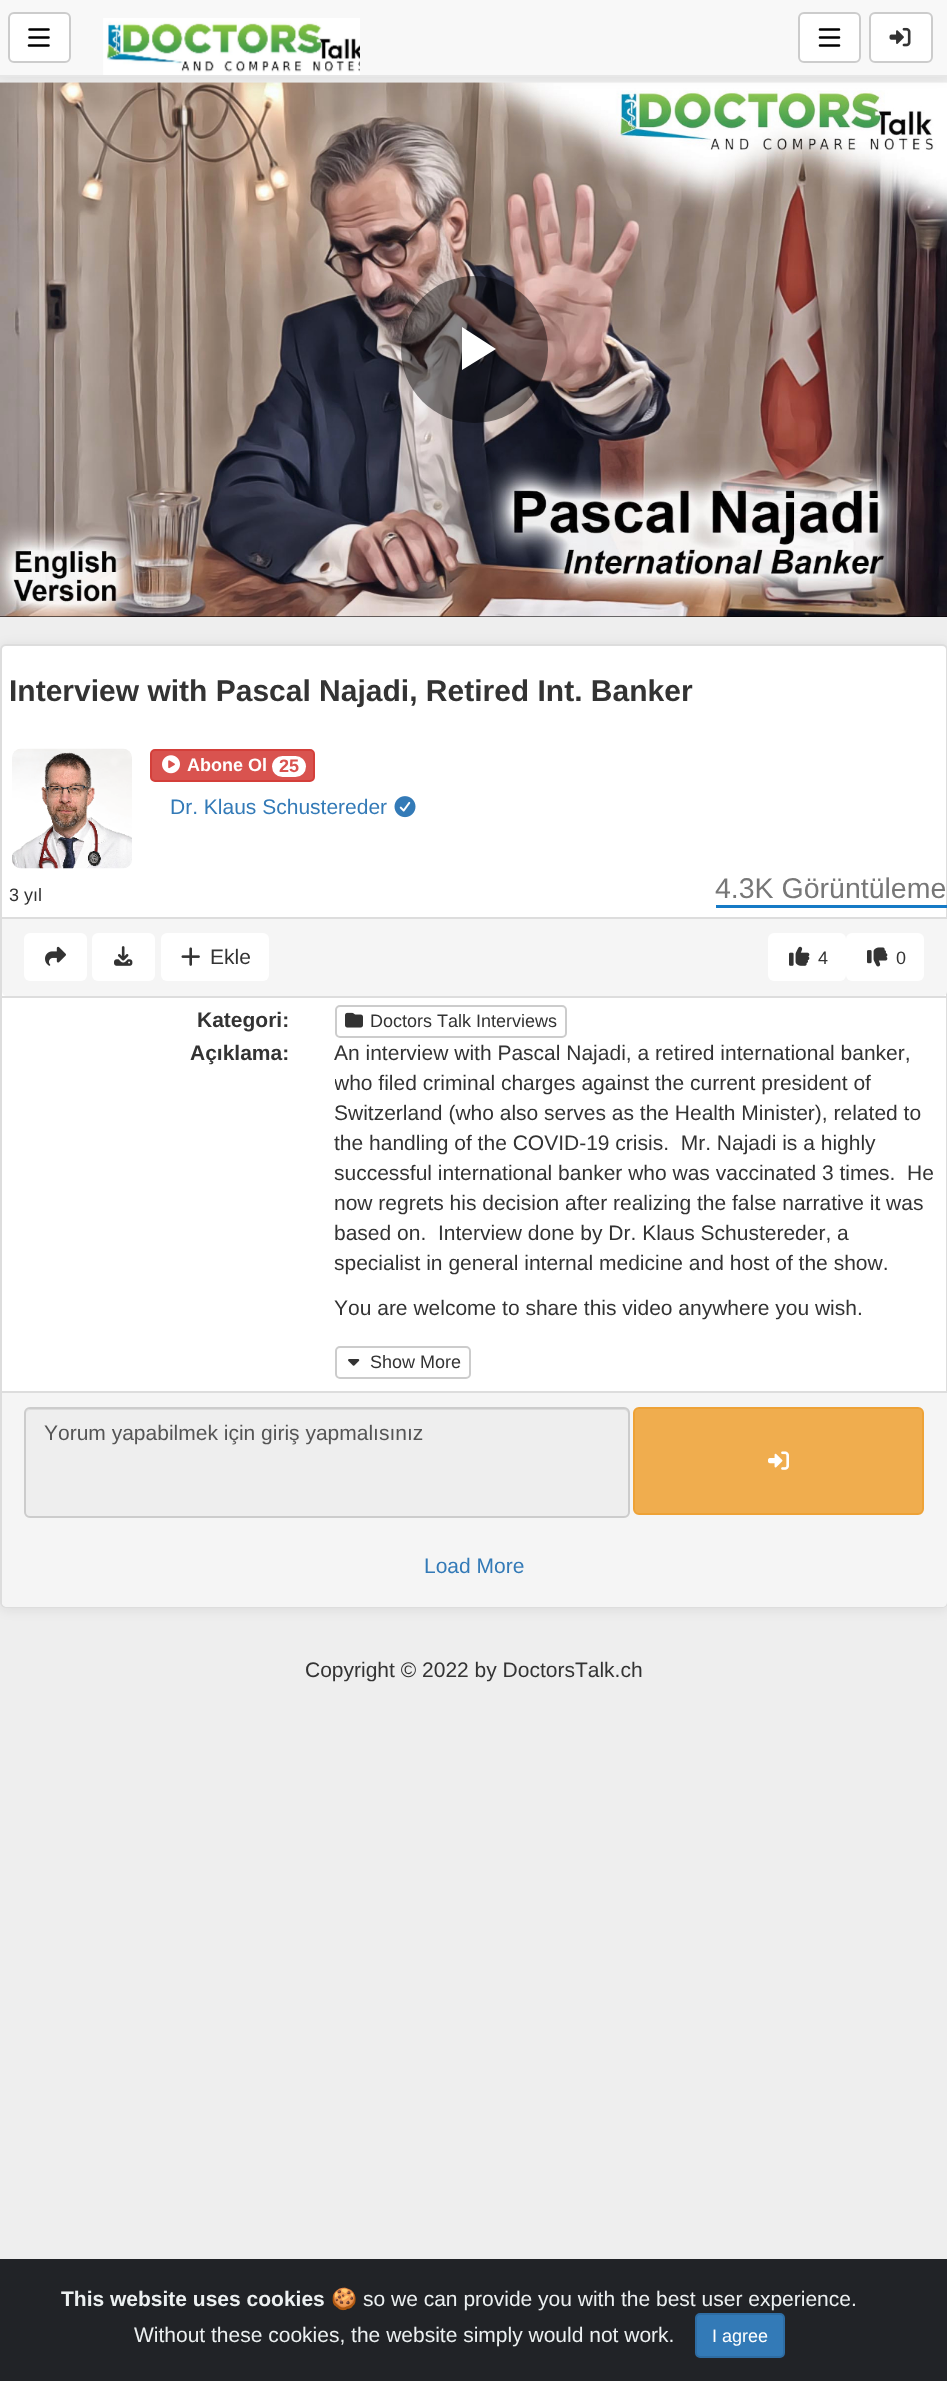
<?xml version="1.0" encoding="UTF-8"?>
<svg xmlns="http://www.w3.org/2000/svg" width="947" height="2381">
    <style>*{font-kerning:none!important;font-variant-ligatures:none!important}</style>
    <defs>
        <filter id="blur1" x="-50%" y="-200%" width="200%" height="500%"><feGaussianBlur stdDeviation="6"/></filter>
        <clipPath id="clip1"><rect x="335" y="1038" width="604" height="300"/></clipPath>
    </defs>
    <rect width="100%" height="100%" fill="#EEEEEE"/>
    <rect x="0" y="616" width="947" height="1" fill="#000000"/>
    <image x="0" y="82" width="947" height="535" href="img_03.png"/>
    <image x="0" y="82" width="947" height="535" href="img_04.png"/>
    <rect x="0" y="2" width="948" height="76" fill="#000000" fill-opacity="0.08" filter="url(#blur1)"/>
    <rect x="0" y="0" width="947" height="75" fill="#F8F8F8"/>
    <rect x="0" y="75" width="947" height="2" fill="#E7E7E7"/>
    <rect x="9" y="13" width="61" height="49" rx="5" fill="#FFFFFF" stroke="#CCCCCC" stroke-width="2"/>
    <path d="M 29.5 29.5 H 48.5 M 48.5 37.5 H 29.5 M 48.5 45.5 H 29" fill="none" stroke="#000000" stroke-width="2.6" stroke-linecap="round"/>
    <image x="103" y="18" width="257" height="57" href="img_01.png"/>
    <rect x="799" y="13" width="61" height="49" rx="5" fill="#FFFFFF" stroke="#CCCCCC" stroke-width="2"/>
    <path d="M 820 29.5 H 839 M 820 37.5 H 839 M 820 45.5 H 839" fill="none" stroke="#000000" stroke-width="2.6" stroke-linecap="round"/>
    <rect x="870" y="13" width="62" height="49" rx="5" fill="#FFFFFF" stroke="#CCCCCC" stroke-width="2"/>
    <image x="889" y="27" width="22" height="20" href="img_02.png"/>
    <circle cx="474.5" cy="349.5" r="73.5" fill="#000000" fill-opacity="0.45"/>
    <path d="M 462 327 V 370 L 496 349 Z" fill="#FFFFFF"/>
    <rect x="0" y="645" width="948" height="965" rx="6" fill="#000000" fill-opacity="0.08" filter="url(#blur1)"/>
    <rect x="1" y="645" width="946" height="962" rx="5" fill="#FFFFFF" stroke="#DDDDDD" stroke-width="2"/>
    <text x="9" y="701" font-family="Liberation Sans" font-size="30" font-weight="700" fill="#333333">Interview with Pascal Najadi, Retired Int. Banker</text>
    <image x="12" y="748" width="120" height="121" href="img_05.png"/>
    <rect x="151" y="750" width="163" height="31" rx="4" fill="#D9534F" stroke="#D43F3A" stroke-width="2"/>
    <image x="162" y="755" width="18" height="19" href="img_06.png"/>
    <text x="187" y="771" font-family="Liberation Sans" font-size="18" font-weight="700" fill="#FFFFFF">Abone Ol</text>
    <rect x="272" y="756" width="34" height="21" rx="10.5" fill="#FFFFFF"/>
    <text x="279" y="772" font-family="Liberation Sans" font-size="18" font-weight="700" fill="#D9534F">25</text>
    <text x="170" y="814" font-family="Liberation Sans" font-size="21" fill="#337AB7">Dr. Klaus Schustereder</text>
    <image x="394" y="796" width="22" height="22" href="img_07.png"/>
    <text x="9" y="901" font-family="Liberation Sans" font-size="18" fill="#333333">3 yıl</text>
    <rect x="716" y="905" width="231" height="3" fill="#167AC6"/>
    <text x="715" y="898" font-family="Liberation Sans" font-size="28.5" fill="#777777">4.3K Görüntüleme</text>
    <path d="M 2 917 H 947 V 991 C 947 994 945 996 942 996 H 7 C 4 996 2 994 2 991 Z" fill="#F5F5F5"/>
    <rect x="2" y="917" width="945" height="2" fill="#DDDDDD"/>
    <rect x="24" y="933" width="63" height="48" rx="6" fill="#FFFFFF"/>
    <image x="45" y="946" width="21" height="20" href="img_08.png"/>
    <rect x="92" y="933" width="63" height="48" rx="6" fill="#FFFFFF"/>
    <image x="114" y="946" width="19" height="20" href="img_09.png"/>
    <rect x="161" y="933" width="108" height="48" rx="6" fill="#FFFFFF"/>
    <image x="181" y="947" width="19" height="19" href="img_10.png"/>
    <text x="210" y="964" font-family="Liberation Sans" font-size="21" fill="#333333">Ekle</text>
    <rect x="768" y="933" width="78" height="48" rx="6" fill="#FFFFFF"/>
    <image x="789" y="946" width="21" height="20" href="img_11.png"/>
    <text x="818" y="964" font-family="Liberation Sans" font-size="18" fill="#333333">4</text>
    <rect x="846" y="933" width="78" height="48" rx="6" fill="#FFFFFF"/>
    <image x="867" y="947" width="21" height="20" href="img_12.png"/>
    <text x="896" y="964" font-family="Liberation Sans" font-size="18" fill="#333333">0</text>
    <rect x="2" y="996" width="945" height="2" fill="#DDDDDD"/>
    <text x="197" y="1027" font-family="Liberation Sans" font-size="21" font-weight="700" fill="#333333">Kategori:</text>
    <rect x="336" y="1006" width="230" height="31" rx="4" fill="none" stroke="#CCCCCC" stroke-width="2"/>
    <image x="345" y="1012" width="18" height="16" href="img_13.png"/>
    <text x="370" y="1027" font-family="Liberation Sans" font-size="18" fill="#333333">Doctors Talk Interviews</text>
    <text x="190" y="1060" font-family="Liberation Sans" font-size="21" font-weight="700" fill="#333333">Açıklama:</text>
    <text x="334" y="1060" font-family="Liberation Sans" font-size="21" fill="#333333">An interview with Pascal Najadi, a retired international banker,</text>
    <g clip-path="url(#clip1)">
        <text x="334" y="1090" font-family="Liberation Sans" font-size="21" fill="#333333">who filed criminal charges against the current president of</text>
    </g>
    <text font-family="Liberation Sans" font-size="21" fill="#333333" xml:space="preserve"><tspan x="334" y="1120">Switzerland (who also serves as the Health Minister), related to</tspan><tspan x="334" y="1150">the handling of the COVID-19 crisis.  Mr. Najadi is a highly</tspan><tspan x="334" y="1180">successful international banker who was vaccinated 3 times.  He</tspan><tspan x="334" y="1210">now regrets his decision after realizing the false narrative it was</tspan><tspan x="334" y="1240">based on.  Interview done by Dr. Klaus Schustereder, a</tspan><tspan x="334" y="1270">specialist in general internal medicine and host of the show.</tspan></text>
    <text x="334" y="1315" font-family="Liberation Sans" font-size="21" fill="#333333">You are welcome to share this video anywhere you wish.</text>
    <rect x="336" y="1347" width="134" height="31" rx="4" fill="none" stroke="#CCCCCC" stroke-width="2"/>
    <image x="348" y="1359" width="12" height="7" href="img_14.png"/>
    <text x="370" y="1368" font-family="Liberation Sans" font-size="18" fill="#333333">Show More</text>
    <path d="M 2 1391 H 947 V 1602 C 947 1605 945 1607 942 1607 H 7 C 4 1607 2 1605 2 1602 Z" fill="#F5F5F5"/>
    <rect x="2" y="1391" width="945" height="2" fill="#DDDDDD"/>
    <rect x="24" y="1407" width="606" height="111" rx="6" fill="#EEEEEE"/>
    <path d="M 30 1410 H 624 C 626 1410 628 1412 628 1414 V 1515 C 629 1514 629 1513 629 1512 V 1414 C 629 1411 627 1409 624 1409 H 31 C 28 1409 26 1411 26 1414 C 26 1412 28 1410 30 1410 Z" fill="#DCDCDC"/>
    <rect x="25" y="1408" width="604" height="109" rx="5" fill="none" stroke="#CCCCCC" stroke-width="2"/>
    <text x="44" y="1440" font-family="Liberation Sans" font-size="21" fill="#555555">Yorum yapabilmek için giriş yapmalısınız</text>
    <rect x="634" y="1408" width="289" height="106" rx="5" fill="#F0AD4E" stroke="#EEA236" stroke-width="2"/>
    <image x="768" y="1451" width="21" height="19" href="img_15.png"/>
    <text x="424" y="1573" font-family="Liberation Sans" font-size="21" fill="#337AB7">Load More</text>
    <text x="305" y="1677" font-family="Liberation Sans" font-size="21" fill="#333333">Copyright © 2022 by DoctorsTalk.ch</text>
    <rect x="0" y="2259" width="947" height="122" fill="#212327"/>
    <text x="61" y="2306" font-family="Liberation Sans" font-size="21" font-weight="700" fill="#ECF0F1">This website uses cookies</text>
    <text x="331" y="2306" font-family="Noto Color Emoji" font-size="21" fill="#ECF0F1">🍪</text>
    <text x="363" y="2306" font-family="Liberation Sans" font-size="21" fill="#ECF0F1">so we can provide you with the best user experience.</text>
    <text x="134" y="2342" font-family="Liberation Sans" font-size="21" fill="#ECF0F1">Without these cookies, the website simply would not work.</text>
    <rect x="696" y="2314" width="88" height="43" rx="4" fill="#337AB7" stroke="#2E6DA4" stroke-width="2"/>
    <text x="712" y="2342" font-family="Liberation Sans" font-size="18" fill="#FFFFFF">I agree</text>
</svg>
